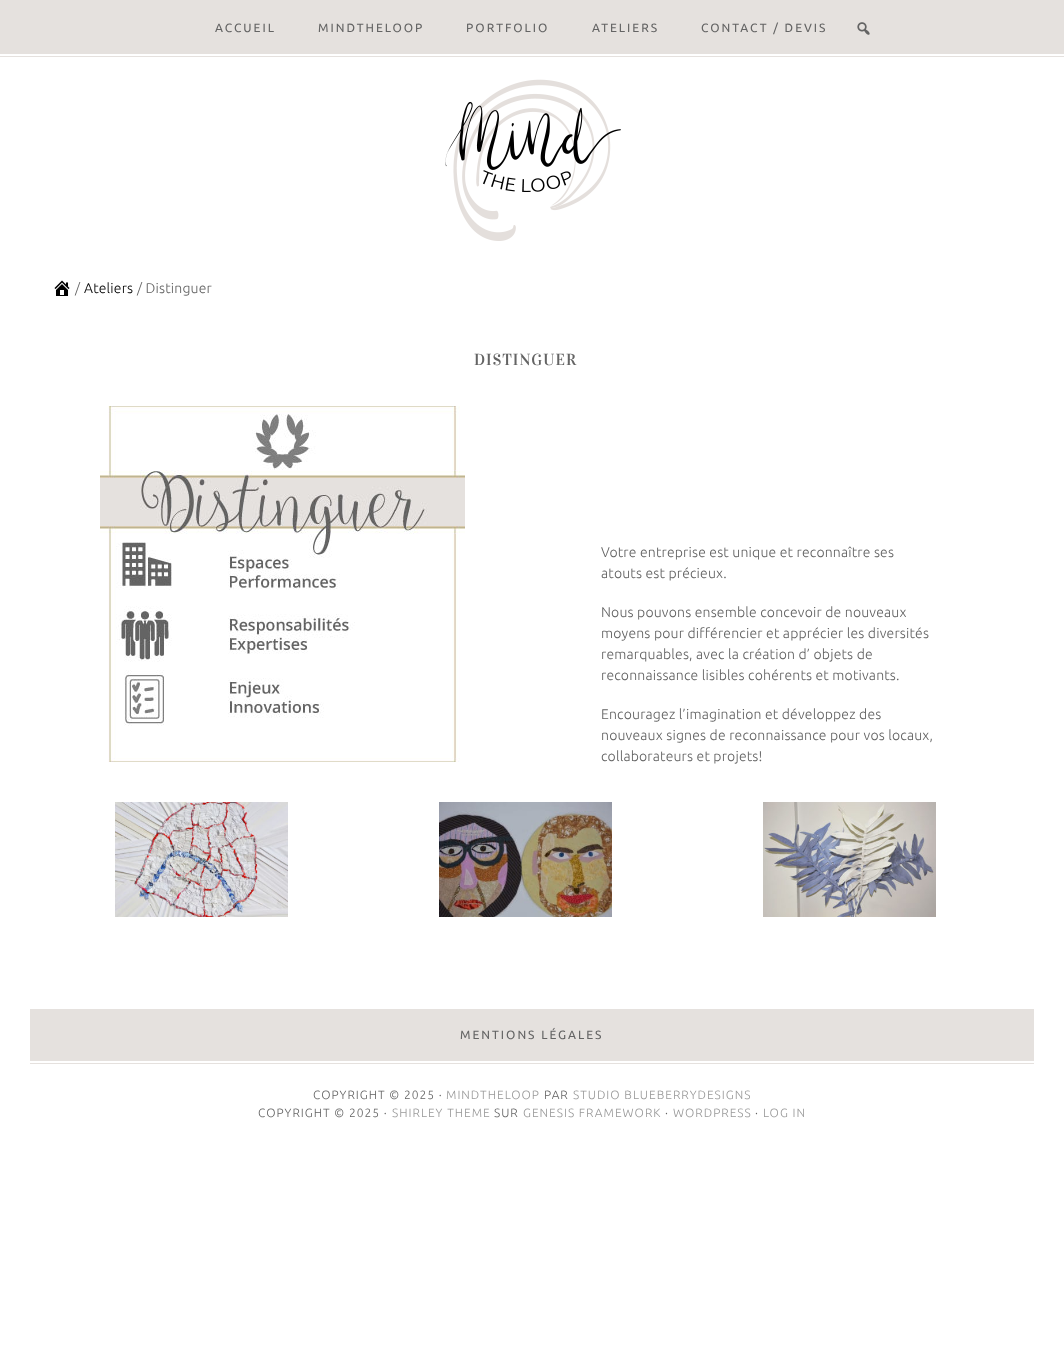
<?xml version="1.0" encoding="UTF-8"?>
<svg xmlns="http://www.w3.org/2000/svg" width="1064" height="1372">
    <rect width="100%" height="100%" fill="#FFFFFF"/>
    <rect x="0" y="0" width="1064" height="57" fill="#E5E1DE"/>
    <rect x="0" y="54" width="1064" height="2" fill="#FFFFFF"/>
    <text x="215" y="32" font-family="Ubuntu" font-size="12" letter-spacing="2" fill="#646464">ACCUEIL</text>
    <text x="318" y="32" font-family="Ubuntu" font-size="12" letter-spacing="2" fill="#646464">MINDTHELOOP</text>
    <text x="466" y="32" font-family="Ubuntu" font-size="12" letter-spacing="2" fill="#646464">PORTFOLIO</text>
    <text x="592" y="32" font-family="Ubuntu" font-size="12" letter-spacing="2" fill="#646464">ATELIERS</text>
    <text x="701" y="32" font-family="Ubuntu" font-size="12" letter-spacing="2" fill="#646464">CONTACT / DEVIS</text>
    <image x="857" y="22" width="13" height="13" href="img_01.png"/>
    <image x="445" y="79" width="176" height="162" href="img_02.png"/>
    <image x="54" y="280" width="16" height="16" href="img_03.png"/>
    <text x="75" y="293" font-family="Ubuntu" font-size="14" font-weight="300" letter-spacing="0.17" fill="#646464">/</text>
    <text x="84" y="293" font-family="Ubuntu" font-size="14" font-weight="300" letter-spacing="0.17" fill="#000000">Ateliers</text>
    <text x="137" y="293" font-family="Ubuntu" font-size="14" font-weight="300" letter-spacing="0.17" fill="#646464">/ Distinguer</text>
    <text x="474" y="365" font-family="Vidaloka" font-size="16" letter-spacing="1" fill="#646464">DISTINGUER</text>
    <image x="100" y="406" width="365" height="356" href="img_04.png"/>
    <text font-family="Ubuntu" font-size="14" font-weight="300" letter-spacing="0.17" fill="#646464">
        <tspan x="601" y="557">Votre entreprise est unique et reconnaître ses</tspan>
        <tspan x="601" y="578">atouts est précieux.</tspan>
    </text>
    <text font-family="Ubuntu" font-size="14" font-weight="300" letter-spacing="0.17" fill="#646464">
        <tspan x="601" y="617">Nous pouvons ensemble concevoir de nouveaux</tspan>
        <tspan x="601" y="638">moyens pour différencier et apprécier les diversités</tspan>
        <tspan x="601" y="659">remarquables, avec la création d’ objets de</tspan>
        <tspan x="601" y="680">reconnaissance lisibles cohérents et motivants.</tspan>
    </text>
    <text font-family="Ubuntu" font-size="14" font-weight="300" letter-spacing="0.17" fill="#646464">
        <tspan x="601" y="719">Encouragez l’imagination et développez des</tspan>
        <tspan x="601" y="740">nouveaux signes de reconnaissance pour vos locaux,</tspan>
        <tspan x="601" y="761">collaborateurs et projets!</tspan>
    </text>
    <image x="115" y="802" width="173" height="115" href="img_05.png"/>
    <image x="439" y="802" width="173" height="115" href="img_06.png"/>
    <image x="763" y="802" width="173" height="115" href="img_07.png"/>
    <rect x="30" y="1009" width="1004" height="55" fill="#E5E1DE"/>
    <rect x="30" y="1061" width="1004" height="2" fill="#FFFFFF"/>
    <text x="460" y="1039" font-family="Ubuntu" font-size="12" letter-spacing="2" fill="#646464">MENTIONS LÉGALES</text>
    <text x="313" y="1099" font-family="Ubuntu" font-size="12" font-weight="300" letter-spacing="1" fill="#646464">COPYRIGHT © 2025 ·</text>
    <text x="446" y="1099" font-family="Ubuntu" font-size="12" font-weight="300" letter-spacing="1" fill="#999999">MINDTHELOOP</text>
    <text x="544" y="1099" font-family="Ubuntu" font-size="12" font-weight="300" letter-spacing="1" fill="#646464">PAR</text>
    <text x="573" y="1099" font-family="Ubuntu" font-size="12" font-weight="300" letter-spacing="1" fill="#999999">STUDIO BLUEBERRYDESIGNS</text>
    <text x="258" y="1117" font-family="Ubuntu" font-size="12" font-weight="300" letter-spacing="1" fill="#646464">COPYRIGHT © 2025 ·</text>
    <text x="392" y="1117" font-family="Ubuntu" font-size="12" font-weight="300" letter-spacing="1" fill="#999999">SHIRLEY THEME</text>
    <text x="494" y="1117" font-family="Ubuntu" font-size="12" font-weight="300" letter-spacing="1" fill="#646464">SUR</text>
    <text x="523" y="1117" font-family="Ubuntu" font-size="12" font-weight="300" letter-spacing="1" fill="#999999">GENESIS FRAMEWORK</text>
    <text x="665" y="1117" font-family="Ubuntu" font-size="12" font-weight="300" letter-spacing="1" fill="#646464">·</text>
    <text x="673" y="1117" font-family="Ubuntu" font-size="12" font-weight="300" letter-spacing="1" fill="#999999">WORDPRESS</text>
    <text x="755" y="1117" font-family="Ubuntu" font-size="12" font-weight="300" letter-spacing="1" fill="#646464">·</text>
    <text x="763" y="1117" font-family="Ubuntu" font-size="12" font-weight="300" letter-spacing="1" fill="#999999">LOG IN</text>
</svg>
